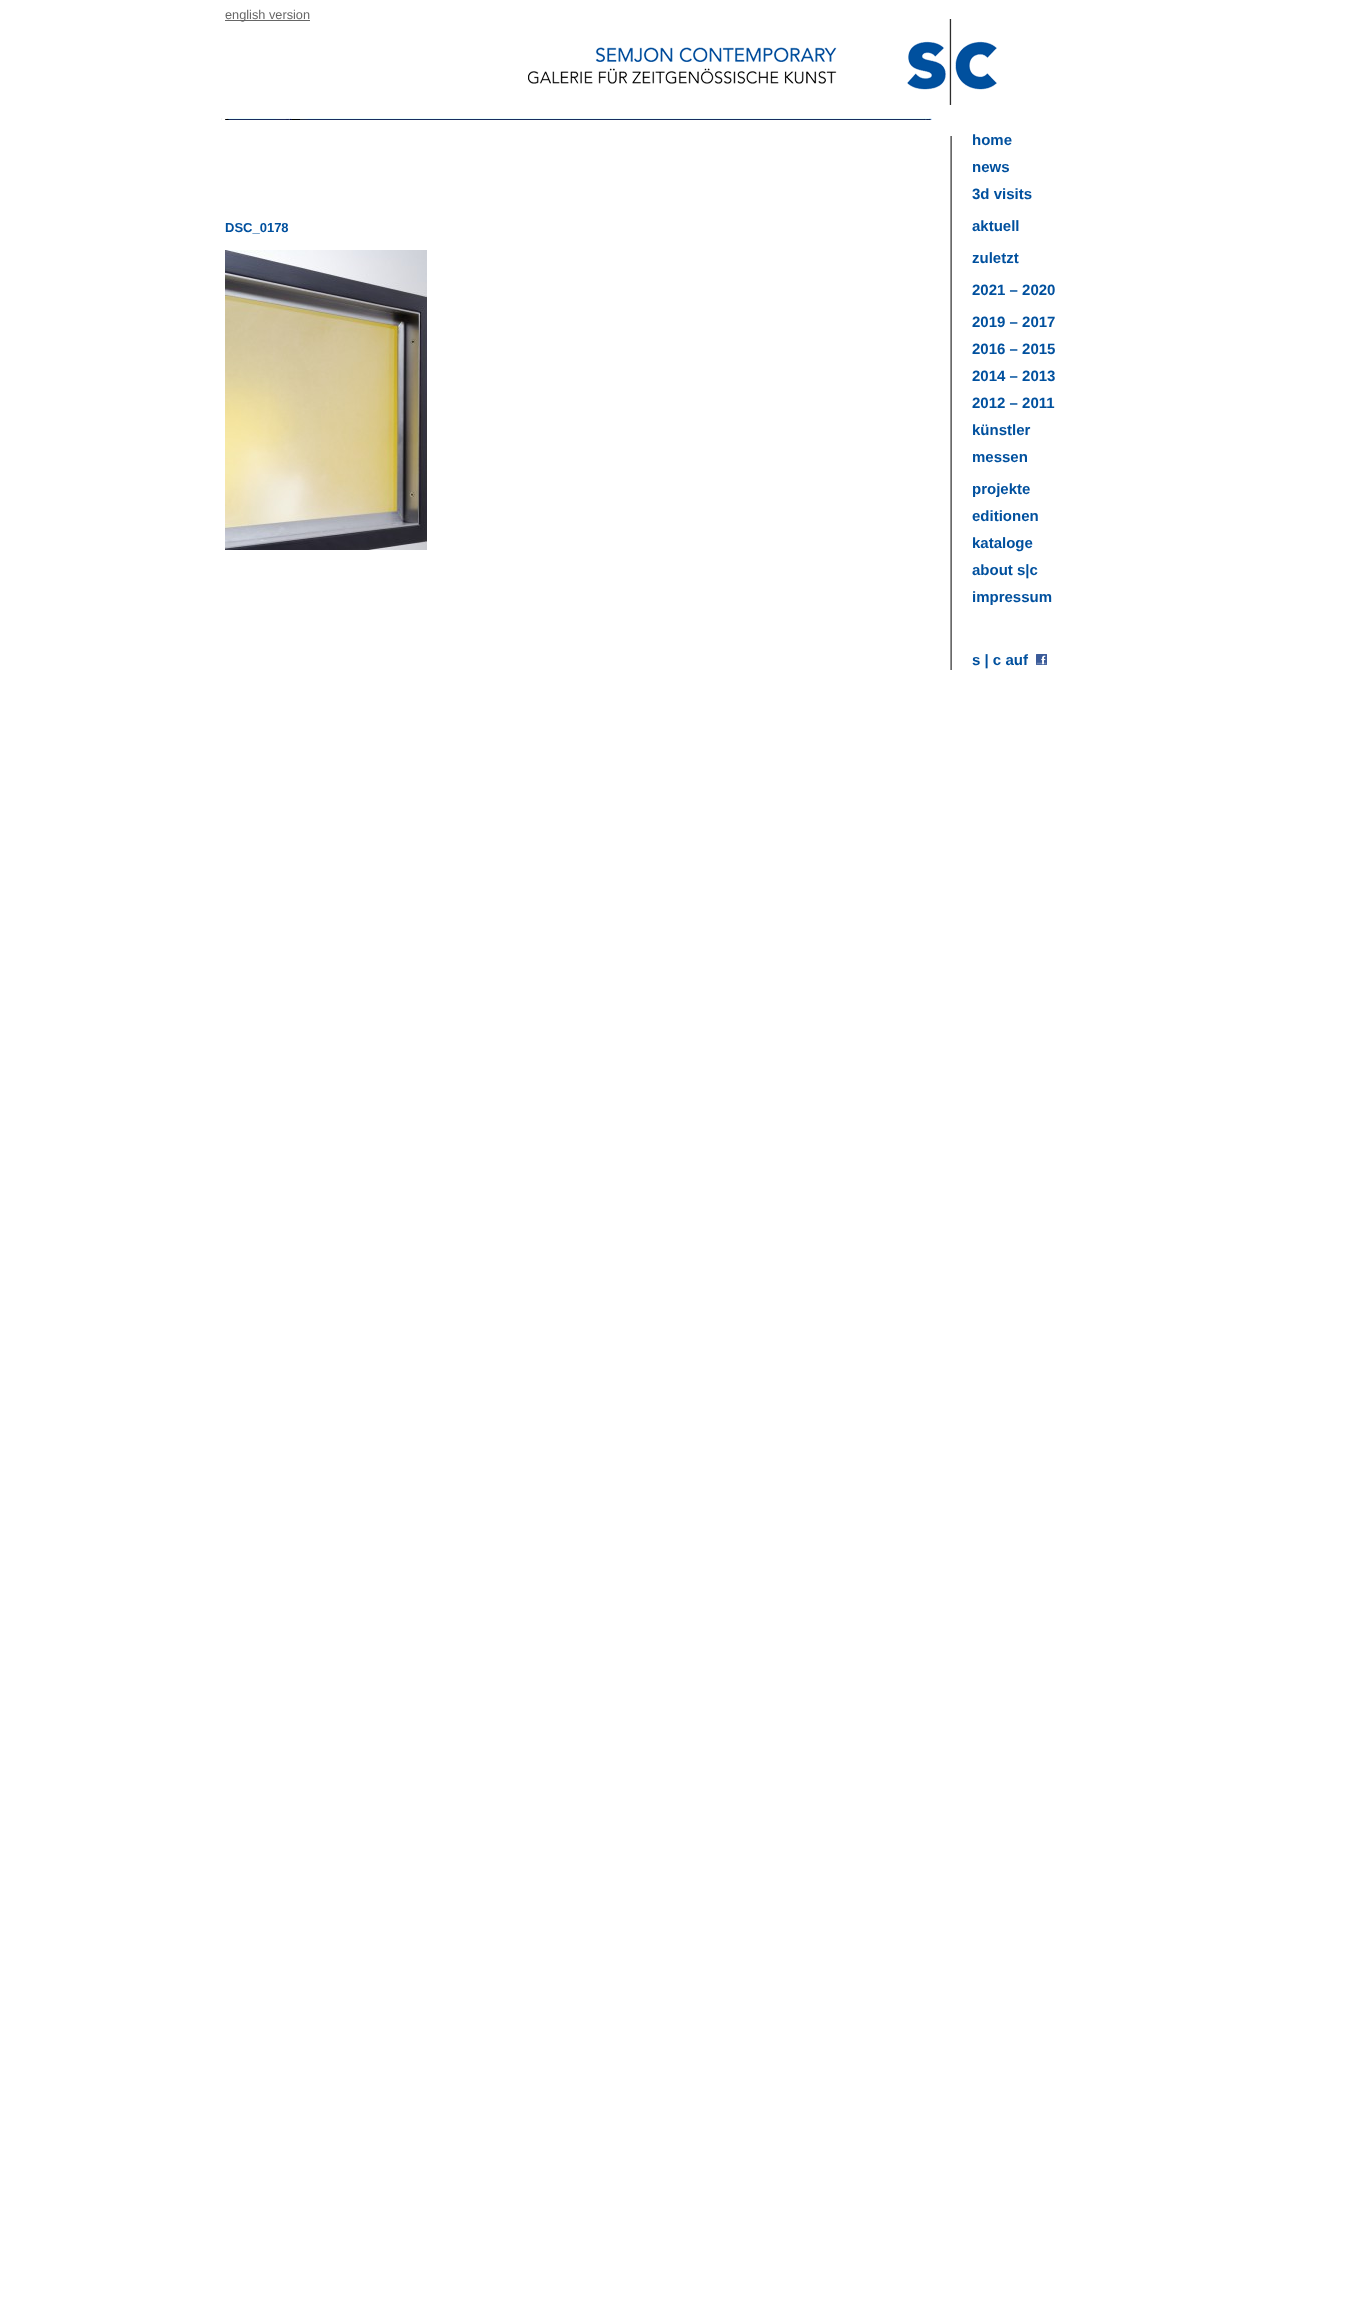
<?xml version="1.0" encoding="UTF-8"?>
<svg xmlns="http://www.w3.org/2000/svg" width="1359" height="2300">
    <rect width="100%" height="100%" fill="#FFFFFF"/>
    <image x="221" y="19" width="776" height="101" href="img_01.png"/>
    <rect x="225" y="20" width="85" height="1" fill="#666666"/>
    <text x="225" y="19" font-family="Liberation Sans" font-size="12.75" fill="#666666">english version</text>
    <text x="225" y="232" font-family="Liberation Sans" font-size="13" font-weight="700" fill="#00509E">DSC_0178</text>
    <image x="225" y="250" width="202" height="300" href="img_02.png"/>
    <image x="950" y="136" width="2" height="534" href="img_03.png"/>
    <text font-family="Liberation Sans" font-size="15" font-weight="700" fill="#00509E">
        <tspan x="972" y="145">home</tspan>
        <tspan x="972" y="172">news</tspan>
        <tspan x="972" y="199">3d visits</tspan>
    </text>
    <text x="972" y="231" font-family="Liberation Sans" font-size="15" font-weight="700" fill="#00509E">aktuell</text>
    <text x="972" y="263" font-family="Liberation Sans" font-size="15" font-weight="700" fill="#00509E">zuletzt</text>
    <text x="972" y="295" font-family="Liberation Sans" font-size="15" font-weight="700" fill="#00509E">2021 – 2020</text>
    <text font-family="Liberation Sans" font-size="15" font-weight="700" fill="#00509E">
        <tspan x="972" y="327">2019 – 2017</tspan>
        <tspan x="972" y="354">2016 – 2015</tspan>
        <tspan x="972" y="381">2014 – 2013</tspan>
        <tspan x="972" y="408">2012 – 2011</tspan>
        <tspan x="972" y="435">künstler</tspan>
        <tspan x="972" y="462">messen</tspan>
    </text>
    <text font-family="Liberation Sans" font-size="15" font-weight="700" fill="#00509E">
        <tspan x="972" y="494">projekte</tspan>
        <tspan x="972" y="521">editionen</tspan>
        <tspan x="972" y="548">kataloge</tspan>
        <tspan x="972" y="575">about s|c</tspan>
        <tspan x="972" y="602">impressum</tspan>
    </text>
    <text x="972" y="665" font-family="Liberation Sans" font-size="15" font-weight="700" fill="#00509E">s | c auf</text>
    <image x="1036" y="654" width="11" height="11" href="img_04.png"/>
</svg>
